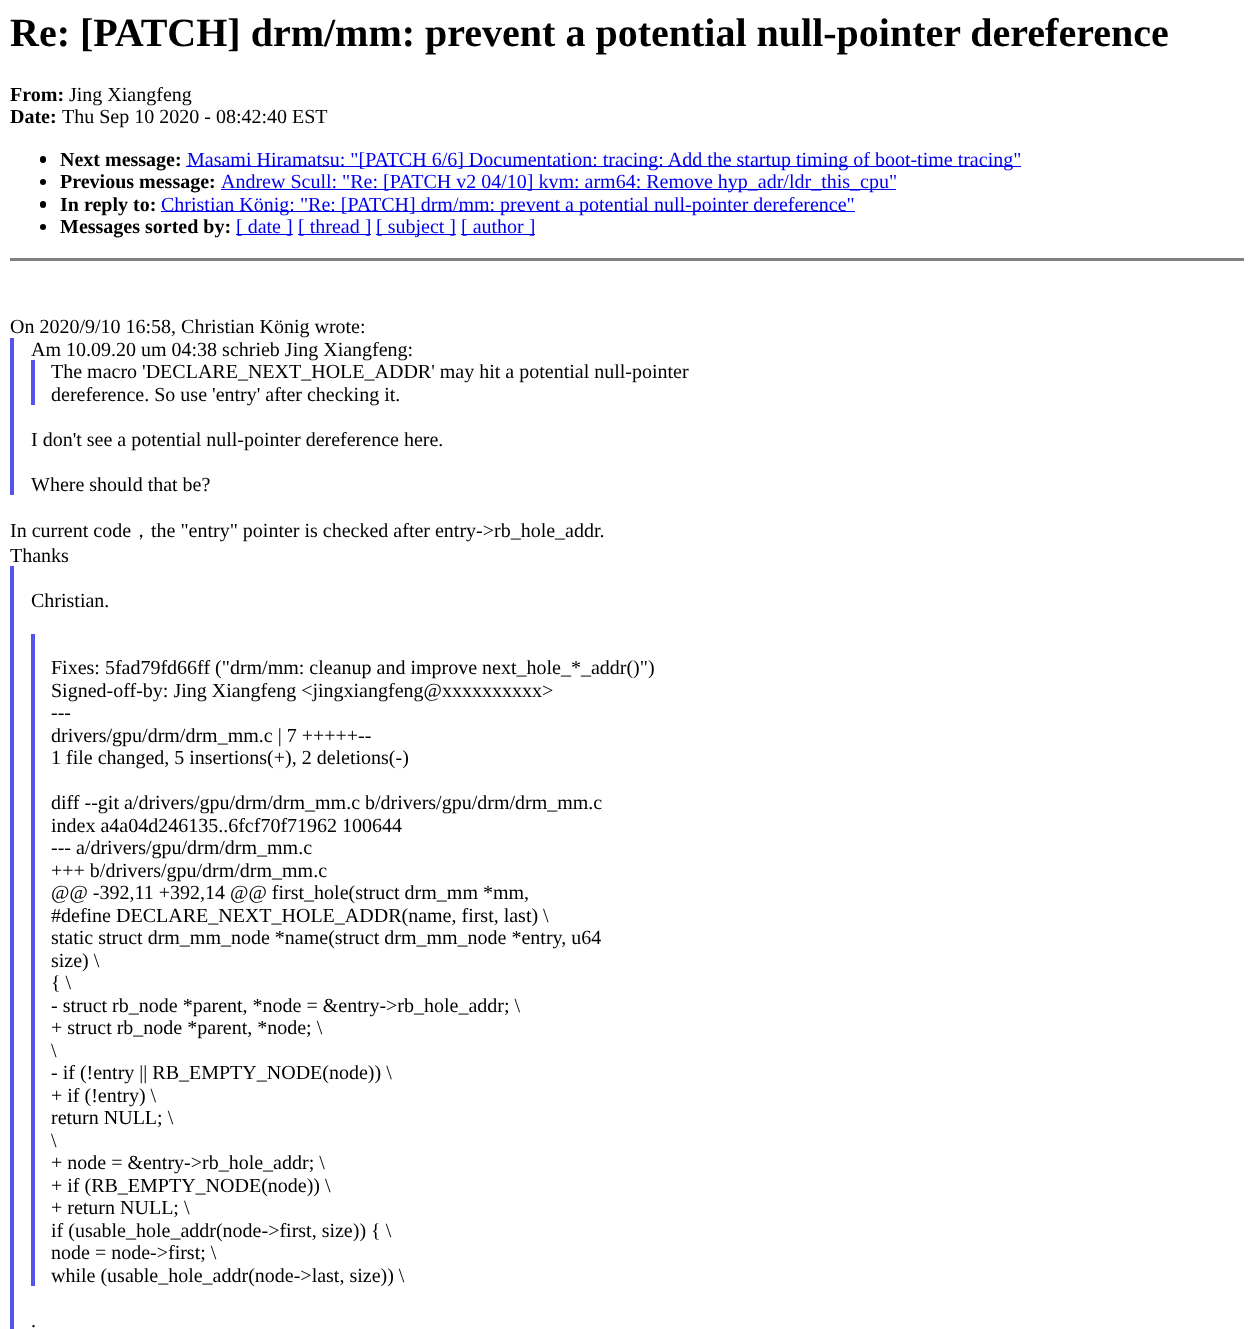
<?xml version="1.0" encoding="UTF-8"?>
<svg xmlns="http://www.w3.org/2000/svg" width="1253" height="1329">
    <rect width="100%" height="100%" fill="#FFFFFF"/>
    <text x="10" y="46" font-family="Liberation Serif" font-size="40" font-weight="700" fill="#000000">Re: [PATCH] drm/mm: prevent a potential null-pointer dereference</text>
    <text x="10" y="101" font-family="Liberation Serif" font-size="20" font-weight="700" fill="#000000">From:</text>
    <text x="69" y="101" font-family="Liberation Serif" font-size="20" fill="#000000">Jing Xiangfeng</text>
    <text x="10" y="123" font-family="Liberation Serif" font-size="20" font-weight="700" fill="#000000">Date:</text>
    <text x="62" y="123" font-family="Liberation Serif" font-size="20" fill="#000000">Thu Sep 10 2020 - 08:42:40 EST</text>
    <rect x="40" y="156" width="6" height="7" rx="3" fill="#000000"/>
    <text x="60" y="166" font-family="Liberation Serif" font-size="20" font-weight="700" fill="#000000">Next message:</text>
    <rect x="186" y="166" width="835" height="1" fill="#0000EE"/>
    <text x="187" y="166" font-family="Liberation Serif" font-size="20" fill="#0000EE">Masami Hiramatsu: "[PATCH 6/6] Documentation: tracing: Add the startup timing of boot-time tracing"</text>
    <circle cx="43" cy="182" r="3" fill="#000000"/>
    <text x="60" y="188" font-family="Liberation Serif" font-size="20" font-weight="700" fill="#000000">Previous message:</text>
    <rect x="221" y="189" width="675" height="1" fill="#0000EE"/>
    <text x="221" y="188" font-family="Liberation Serif" font-size="20" fill="#0000EE">Andrew Scull: "Re: [PATCH v2 04/10] kvm: arm64: Remove hyp_adr/ldr_this_cpu"</text>
    <rect x="40" y="201" width="6" height="7" rx="3" fill="#000000"/>
    <text x="60" y="211" font-family="Liberation Serif" font-size="20" font-weight="700" fill="#000000">In reply to:</text>
    <rect x="161" y="211" width="694" height="1" fill="#0000EE"/>
    <text x="161" y="211" font-family="Liberation Serif" font-size="20" fill="#0000EE">Christian König: "Re: [PATCH] drm/mm: prevent a potential null-pointer dereference"</text>
    <circle cx="43" cy="227" r="3" fill="#000000"/>
    <text x="60" y="233" font-family="Liberation Serif" font-size="20" font-weight="700" fill="#000000">Messages sorted by:</text>
    <rect x="236" y="234" width="57" height="1" fill="#0000EE"/>
    <text x="236" y="233" font-family="Liberation Serif" font-size="20" fill="#0000EE">[ date ]</text>
    <rect x="298" y="234" width="73" height="1" fill="#0000EE"/>
    <text x="298" y="233" font-family="Liberation Serif" font-size="20" fill="#0000EE">[ thread ]</text>
    <rect x="376" y="234" width="80" height="1" fill="#0000EE"/>
    <text x="376" y="233" font-family="Liberation Serif" font-size="20" fill="#0000EE">[ subject ]</text>
    <rect x="461" y="234" width="74" height="1" fill="#0000EE"/>
    <text x="461" y="233" font-family="Liberation Serif" font-size="20" fill="#0000EE">[ author ]</text>
    <rect x="10" y="258" width="1234" height="3" fill="#808080"/>
    <text x="10" y="333" font-family="Liberation Serif" font-size="20" fill="#000000">On 2020/9/10 16:58, Christian König wrote:</text>
    <rect x="10" y="338" width="4" height="157" fill="#5555EE"/>
    <rect x="31" y="360" width="4" height="45" fill="#5555EE"/>
    <text x="31" y="356" font-family="Liberation Serif" font-size="20" fill="#000000">Am 10.09.20 um 04:38 schrieb Jing Xiangfeng:</text>
    <text font-family="Liberation Serif" font-size="20" fill="#000000">
        <tspan x="51" y="378">The macro 'DECLARE_NEXT_HOLE_ADDR' may hit a potential null-pointer</tspan>
        <tspan x="51" y="401">dereference. So use 'entry' after checking it.</tspan>
    </text>
    <text x="31" y="446" font-family="Liberation Serif" font-size="20" fill="#000000">I don't see a potential null-pointer dereference here.</text>
    <text x="31" y="491" font-family="Liberation Serif" font-size="20" fill="#000000">Where should that be?</text>
    <text x="10" y="537" font-family="Liberation Serif" font-size="20" fill="#000000">In current code</text>
    <text x="131" y="537" font-family="WenQuanYi Zen Hei" font-size="20" font-weight="500" fill="#000000">，</text>
    <text x="151" y="537" font-family="Liberation Serif" font-size="20" fill="#000000">the "entry" pointer is checked after entry-&gt;rb_hole_addr.</text>
    <text x="10" y="562" font-family="Liberation Serif" font-size="20" fill="#000000">Thanks</text>
    <rect x="10" y="566" width="4" height="763" fill="#5555EE"/>
    <text x="31" y="607" font-family="Liberation Serif" font-size="20" fill="#000000">Christian.</text>
    <rect x="31" y="634" width="4" height="652" fill="#5555EE"/>
    <text font-family="Liberation Serif" font-size="20" fill="#000000">
        <tspan x="51" y="674">Fixes: 5fad79fd66ff ("drm/mm: cleanup and improve next_hole_*_addr()")</tspan>
        <tspan x="51" y="697">Signed-off-by: Jing Xiangfeng &lt;jingxiangfeng@xxxxxxxxxx&gt;</tspan>
        <tspan x="51" y="719">---</tspan>
        <tspan x="51" y="742">drivers/gpu/drm/drm_mm.c | 7 +++++--</tspan>
        <tspan x="51" y="764">1 file changed, 5 insertions(+), 2 deletions(-)</tspan>
    </text>
    <text font-family="Liberation Serif" font-size="20" fill="#000000">
        <tspan x="51" y="809">diff --git a/drivers/gpu/drm/drm_mm.c b/drivers/gpu/drm/drm_mm.c</tspan>
        <tspan x="51" y="832">index a4a04d246135..6fcf70f71962 100644</tspan>
        <tspan x="51" y="854">--- a/drivers/gpu/drm/drm_mm.c</tspan>
        <tspan x="51" y="877">+++ b/drivers/gpu/drm/drm_mm.c</tspan>
        <tspan x="51" y="899">@@ -392,11 +392,14 @@ first_hole(struct drm_mm *mm,</tspan>
        <tspan x="51" y="922">#define DECLARE_NEXT_HOLE_ADDR(name, first, last) \</tspan>
        <tspan x="51" y="944">static struct drm_mm_node *name(struct drm_mm_node *entry, u64</tspan>
        <tspan x="51" y="967">size) \</tspan>
        <tspan x="51" y="989">{ \</tspan>
        <tspan x="51" y="1012">- struct rb_node *parent, *node = &amp;entry-&gt;rb_hole_addr; \</tspan>
        <tspan x="51" y="1034">+ struct rb_node *parent, *node; \</tspan>
        <tspan x="51" y="1057">\</tspan>
        <tspan x="51" y="1079">- if (!entry || RB_EMPTY_NODE(node)) \</tspan>
        <tspan x="51" y="1102">+ if (!entry) \</tspan>
        <tspan x="51" y="1124">return NULL; \</tspan>
        <tspan x="51" y="1147">\</tspan>
        <tspan x="51" y="1169">+ node = &amp;entry-&gt;rb_hole_addr; \</tspan>
        <tspan x="51" y="1192">+ if (RB_EMPTY_NODE(node)) \</tspan>
        <tspan x="51" y="1214">+ return NULL; \</tspan>
        <tspan x="51" y="1237">if (usable_hole_addr(node-&gt;first, size)) { \</tspan>
        <tspan x="51" y="1259">node = node-&gt;first; \</tspan>
        <tspan x="51" y="1282">while (usable_hole_addr(node-&gt;last, size)) \</tspan>
    </text>
    <text x="31" y="1327" font-family="Liberation Serif" font-size="20" fill="#000000">.</text>
</svg>
